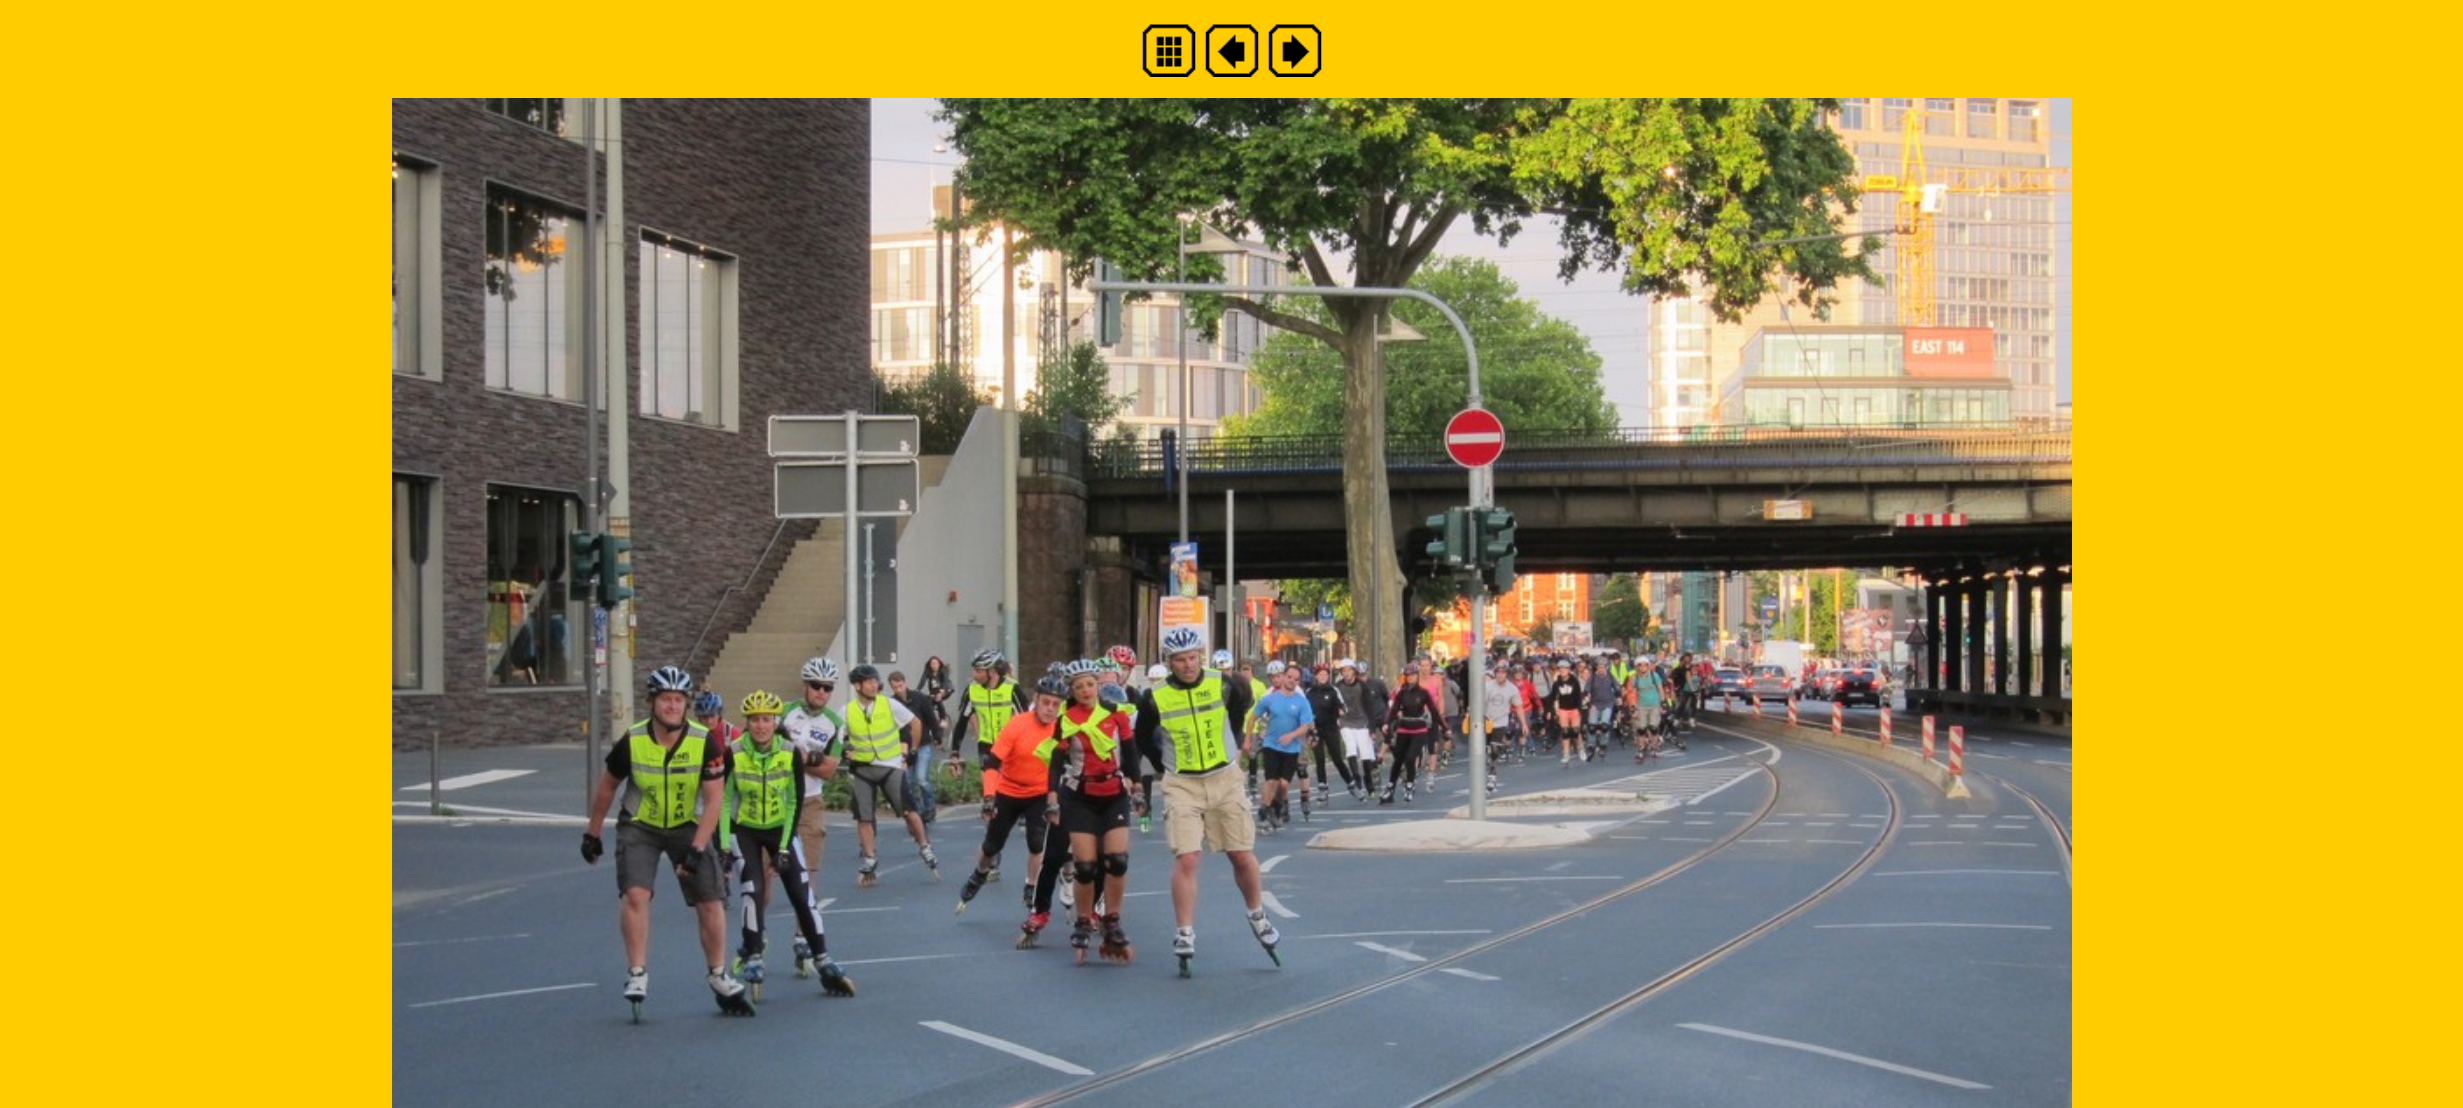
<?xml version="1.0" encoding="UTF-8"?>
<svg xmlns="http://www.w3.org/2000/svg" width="2463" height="1108">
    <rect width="100%" height="100%" fill="#FFCC00"/>
    <image x="1142" y="24" width="54" height="53" href="img_01.png"/>
    <image x="1205" y="24" width="54" height="53" href="img_02.png"/>
    <image x="1268" y="24" width="54" height="53" href="img_03.png"/>
    <image x="392" y="98" width="1680" height="1010" href="img_04.png"/>
</svg>
